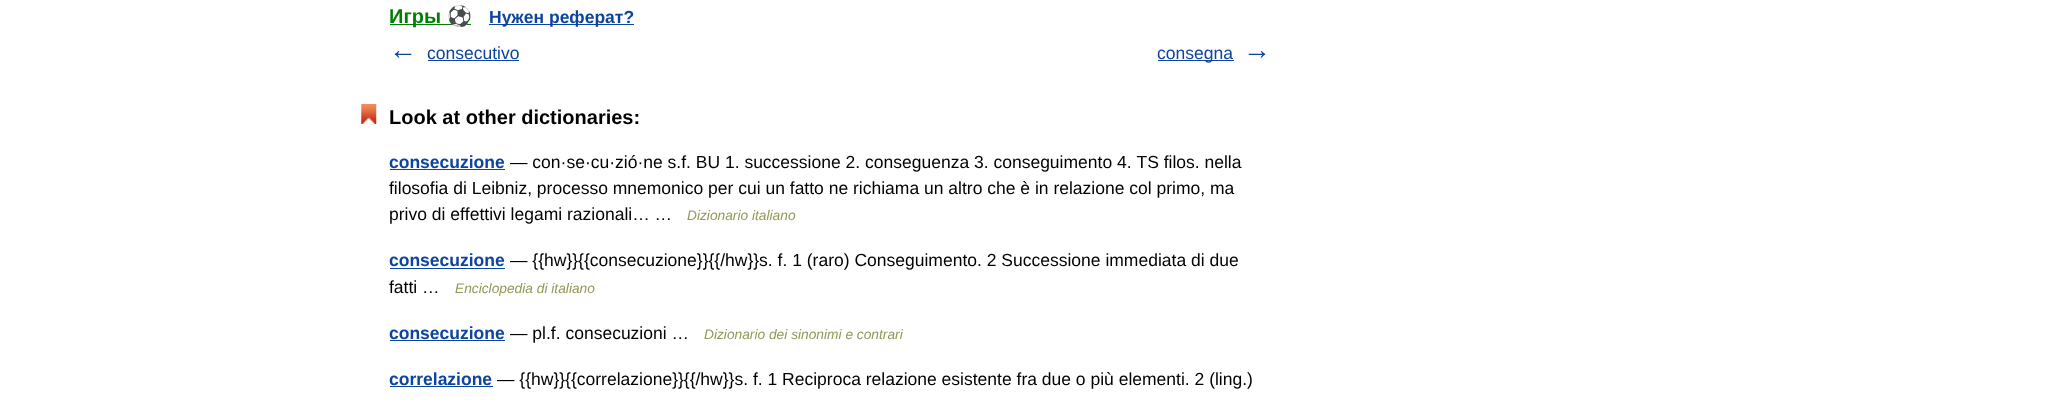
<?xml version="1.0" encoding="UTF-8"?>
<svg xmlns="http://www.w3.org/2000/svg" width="2053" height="400">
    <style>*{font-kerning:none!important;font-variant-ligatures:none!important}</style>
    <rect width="100%" height="100%" fill="#FFFFFF"/>
    <rect x="390" y="24" width="81" height="1" fill="#008000"/>
    <text x="389" y="23" font-family="Liberation Sans" font-size="20" font-weight="700" fill="#008000">Игры</text>
    <text x="447" y="23" font-family="Noto Color Emoji" font-size="20" font-weight="700" fill="#008000">⚽</text>
    <rect x="489" y="24" width="145" height="1" fill="#0D44A0"/>
    <text x="489" y="23" font-family="Liberation Sans" font-size="17.5" font-weight="700" fill="#0D44A0">Нужен реферат?</text>
    <text x="389" y="59" font-family="Liberation Sans" font-size="28" font-weight="700" fill="#0D44A0">←</text>
    <text x="427" y="59" font-family="Liberation Sans" font-size="17.5" fill="#0D44A0">consecutivo</text>
    <rect x="428" y="60" width="91" height="1" fill="#0D44A0"/>
    <rect x="1158" y="60" width="76" height="1" fill="#0D44A0"/>
    <text x="1157" y="59" font-family="Liberation Sans" font-size="17.5" fill="#0D44A0">consegna</text>
    <text x="1243" y="59" font-family="Liberation Sans" font-size="28" font-weight="700" fill="#0D44A0">→</text>
    <image x="361" y="104" width="16" height="20" href="img_01.png"/>
    <text x="389" y="124" font-family="Liberation Sans" font-size="20" font-weight="700" fill="#000000">Look at other dictionaries:</text>
    <text x="389" y="168" font-family="Liberation Sans" font-size="17.5" font-weight="700" fill="#0D44A0">consecuzione</text>
    <rect x="390" y="169" width="115" height="1" fill="#0D44A0"/>
    <text x="510" y="168" font-family="Liberation Sans" font-size="17.5" fill="#000000">— con·se·cu·zió·ne s.f. BU 1. successione 2. conseguenza 3. conseguimento 4. TS filos. nella</text>
    <text font-family="Liberation Sans" font-size="17.5" fill="#000000">
        <tspan x="389" y="194">filosofia di Leibniz, processo mnemonico per cui un fatto ne richiama un altro che è in relazione col primo, ma</tspan>
        <tspan x="389" y="220">privo di effettivi legami razionali… …</tspan>
    </text>
    <text x="687" y="220" font-family="Liberation Sans" font-size="13.75" font-style="italic" fill="#939756">Dizionario italiano</text>
    <text x="389" y="266" font-family="Liberation Sans" font-size="17.5" font-weight="700" fill="#0D44A0">consecuzione</text>
    <rect x="390" y="268" width="115" height="1" fill="#0D44A0"/>
    <text x="510" y="266" font-family="Liberation Sans" font-size="17.5" fill="#000000">— {{hw}}{{consecuzione}}{{/hw}}s. f. 1 (raro) Conseguimento. 2 Successione immediata di due</text>
    <text x="389" y="293" font-family="Liberation Sans" font-size="17.5" fill="#000000">fatti …</text>
    <text x="455" y="293" font-family="Liberation Sans" font-size="13.75" font-style="italic" fill="#939756">Enciclopedia di italiano</text>
    <text x="389" y="339" font-family="Liberation Sans" font-size="17.5" font-weight="700" fill="#0D44A0">consecuzione</text>
    <rect x="390" y="340" width="115" height="1" fill="#0D44A0"/>
    <text x="510" y="339" font-family="Liberation Sans" font-size="17.5" fill="#000000">— pl.f. consecuzioni …</text>
    <text x="704" y="339" font-family="Liberation Sans" font-size="13.75" font-style="italic" fill="#939756">Dizionario dei sinonimi e contrari</text>
    <text x="389" y="385" font-family="Liberation Sans" font-size="17.5" font-weight="700" fill="#0D44A0">correlazione</text>
    <rect x="390" y="386" width="103" height="1" fill="#0D44A0"/>
    <text x="497" y="385" font-family="Liberation Sans" font-size="17.5" fill="#000000">— {{hw}}{{correlazione}}{{/hw}}s. f. 1 Reciproca relazione esistente fra due o più elementi. 2 (ling.)</text>
</svg>
